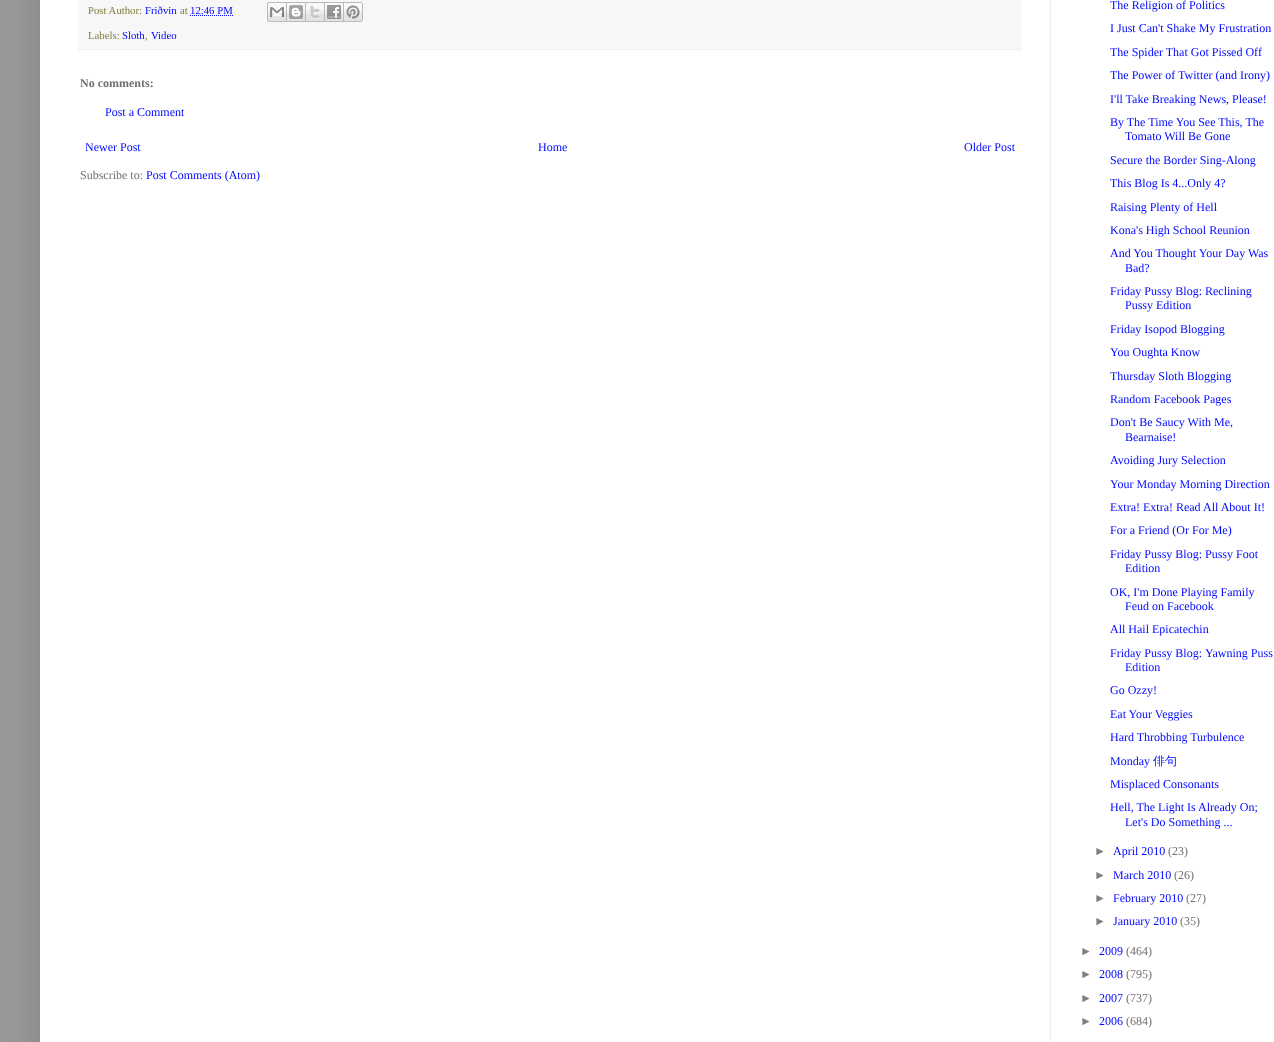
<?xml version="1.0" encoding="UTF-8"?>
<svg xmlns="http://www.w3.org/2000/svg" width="1274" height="1042">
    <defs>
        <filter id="blur1" x="-50%" y="-200%" width="200%" height="500%"><feGaussianBlur stdDeviation="20"/></filter>
    </defs>
    <rect width="100%" height="100%" fill="#999999"/>
    <rect x="40" y="-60" width="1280" height="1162" fill="#000000" fill-opacity="0.15" filter="url(#blur1)"/>
    <rect x="40" y="0" width="1234" height="1042" fill="#FFFFFF"/>
    <rect x="78" y="0" width="944" height="49" fill="#F7F7F7"/>
    <rect x="78" y="49" width="944" height="1" fill="#EEEEF8"/>
    <text x="88" y="14" font-family="Liberation Serif" font-size="10.75" fill="#7F7C3F">Post Author:</text>
    <text x="145" y="14" font-family="Liberation Serif" font-size="10.75" fill="#0008FF">Friðvin</text>
    <text x="180" y="14" font-family="Liberation Serif" font-size="10.75" fill="#7F7C3F">at</text>
    <text x="190" y="14" font-family="Liberation Serif" font-size="10.75" fill="#0008FF">12:46 PM</text>
    <path d="M 190 15.5 H 233" fill="none" stroke="#0008FF" stroke-dasharray="1 1"/>
    <image x="267" y="2" width="20" height="20" href="img_01.png"/>
    <image x="287" y="2" width="19" height="20" href="img_02.png"/>
    <image x="306" y="2" width="19" height="20" href="img_03.png"/>
    <image x="325" y="2" width="19" height="20" href="img_04.png"/>
    <image x="344" y="2" width="19" height="20" href="img_05.png"/>
    <text x="88" y="39" font-family="Liberation Serif" font-size="10.75" fill="#7F7C3F">Labels:</text>
    <text x="122" y="39" font-family="Liberation Serif" font-size="10.75" fill="#0008FF">Sloth</text>
    <text x="145" y="39" font-family="Liberation Serif" font-size="10.75" fill="#7F7C3F">,</text>
    <text x="151" y="39" font-family="Liberation Serif" font-size="10.75" fill="#0008FF">Video</text>
    <text x="80" y="87" font-family="Liberation Serif" font-size="12" font-weight="700" fill="#707070">No comments:</text>
    <text x="105" y="116" font-family="Liberation Serif" font-size="12" fill="#0008FF">Post a Comment</text>
    <text x="85" y="151" font-family="Liberation Serif" font-size="12" fill="#0008FF">Newer Post</text>
    <text x="538" y="151" font-family="Liberation Serif" font-size="12" fill="#0008FF">Home</text>
    <text x="964" y="151" font-family="Liberation Serif" font-size="12" fill="#0008FF">Older Post</text>
    <text x="80" y="179" font-family="Liberation Serif" font-size="12" fill="#707070">Subscribe to:</text>
    <text x="146" y="179" font-family="Liberation Serif" font-size="12" fill="#0008FF">Post Comments (Atom)</text>
    <text font-family="Liberation Serif" font-size="12" fill="#0008FF">
        <tspan x="1110" y="9">The Religion of Politics</tspan>
        <tspan x="1110" y="32">I Just Can't Shake My Frustration</tspan>
    </text>
    <text font-family="Liberation Serif" font-size="12" fill="#0008FF">
        <tspan x="1110" y="56">The Spider That Got Pissed Off</tspan>
        <tspan x="1110" y="79">The Power of Twitter (and Irony)</tspan>
    </text>
    <text font-family="Liberation Serif" font-size="12" fill="#0008FF">
        <tspan x="1110" y="103">I'll Take Breaking News, Please!</tspan>
        <tspan x="1110" y="126">By The Time You See This, The</tspan>
    </text>
    <text x="1125" y="140" font-family="Liberation Serif" font-size="12" fill="#0008FF">Tomato Will Be Gone</text>
    <text font-family="Liberation Serif" font-size="12" fill="#0008FF">
        <tspan x="1110" y="164">Secure the Border Sing-Along</tspan>
        <tspan x="1110" y="187">This Blog Is 4...Only 4?</tspan>
    </text>
    <text font-family="Liberation Serif" font-size="12" fill="#0008FF">
        <tspan x="1110" y="211">Raising Plenty of Hell</tspan>
        <tspan x="1110" y="234">Kona's High School Reunion</tspan>
        <tspan x="1110" y="257">And You Thought Your Day Was</tspan>
    </text>
    <text x="1125" y="272" font-family="Liberation Serif" font-size="12" fill="#0008FF">Bad?</text>
    <text x="1110" y="295" font-family="Liberation Serif" font-size="12" fill="#0008FF">Friday Pussy Blog: Reclining</text>
    <text x="1125" y="309" font-family="Liberation Serif" font-size="12" fill="#0008FF">Pussy Edition</text>
    <text font-family="Liberation Serif" font-size="12" fill="#0008FF">
        <tspan x="1110" y="333">Friday Isopod Blogging</tspan>
        <tspan x="1110" y="356">You Oughta Know</tspan>
    </text>
    <text font-family="Liberation Serif" font-size="12" fill="#0008FF">
        <tspan x="1110" y="380">Thursday Sloth Blogging</tspan>
        <tspan x="1110" y="403">Random Facebook Pages</tspan>
        <tspan x="1110" y="426">Don't Be Saucy With Me,</tspan>
    </text>
    <text x="1125" y="441" font-family="Liberation Serif" font-size="12" fill="#0008FF">Bearnaise!</text>
    <text x="1110" y="464" font-family="Liberation Serif" font-size="12" fill="#0008FF">Avoiding Jury Selection</text>
    <text font-family="Liberation Serif" font-size="12" fill="#0008FF">
        <tspan x="1110" y="488">Your Monday Morning Direction</tspan>
        <tspan x="1110" y="511">Extra! Extra! Read All About It!</tspan>
        <tspan x="1110" y="534">For a Friend (Or For Me)</tspan>
    </text>
    <text x="1110" y="558" font-family="Liberation Serif" font-size="12" fill="#0008FF">Friday Pussy Blog: Pussy Foot</text>
    <text x="1125" y="572" font-family="Liberation Serif" font-size="12" fill="#0008FF">Edition</text>
    <text x="1110" y="596" font-family="Liberation Serif" font-size="12" fill="#0008FF">OK, I'm Done Playing Family</text>
    <text x="1125" y="610" font-family="Liberation Serif" font-size="12" fill="#0008FF">Feud on Facebook</text>
    <text x="1110" y="633" font-family="Liberation Serif" font-size="12" fill="#0008FF">All Hail Epicatechin</text>
    <text x="1110" y="657" font-family="Liberation Serif" font-size="12" fill="#0008FF">Friday Pussy Blog:</text>
    <text x="1205" y="657" font-family="Liberation Serif" font-size="12" fill="#0008FF">Yawning Puss</text>
    <text x="1125" y="671" font-family="Liberation Serif" font-size="12" fill="#0008FF">Edition</text>
    <text x="1110" y="694" font-family="Liberation Serif" font-size="12" fill="#0008FF">Go Ozzy!</text>
    <text font-family="Liberation Serif" font-size="12" fill="#0008FF">
        <tspan x="1110" y="718">Eat Your Veggies</tspan>
        <tspan x="1110" y="741">Hard Throbbing Turbulence</tspan>
    </text>
    <text x="1110" y="765" font-family="Liberation Serif" font-size="12" fill="#0008FF">Monday</text>
    <text x="1153" y="765" font-family="WenQuanYi Zen Hei" font-size="12" font-weight="500" fill="#0008FF">俳句</text>
    <text font-family="Liberation Serif" font-size="12" fill="#0008FF">
        <tspan x="1110" y="788">Misplaced Consonants</tspan>
        <tspan x="1110" y="811">Hell, The Light Is Already On;</tspan>
    </text>
    <text x="1125" y="826" font-family="Liberation Serif" font-size="12" fill="#0008FF">Let's Do Something ...</text>
    <text x="1094" y="855" font-family="Liberation Sans" font-size="12" fill="#7F7F7F">►</text>
    <text x="1113" y="855" font-family="Liberation Serif" font-size="12" fill="#0008FF">April 2010</text>
    <text x="1168" y="855" font-family="Liberation Serif" font-size="12" fill="#707070">(23)</text>
    <text x="1094" y="879" font-family="Liberation Sans" font-size="12" fill="#7F7F7F">►</text>
    <text x="1113" y="879" font-family="Liberation Serif" font-size="12" fill="#0008FF">March 2010</text>
    <text x="1174" y="879" font-family="Liberation Serif" font-size="12" fill="#707070">(26)</text>
    <text x="1094" y="902" font-family="Liberation Sans" font-size="12" fill="#7F7F7F">►</text>
    <text x="1113" y="902" font-family="Liberation Serif" font-size="12" fill="#0008FF">February 2010</text>
    <text x="1186" y="902" font-family="Liberation Serif" font-size="12" fill="#707070">(27)</text>
    <text x="1094" y="925" font-family="Liberation Sans" font-size="12" fill="#7F7F7F">►</text>
    <text x="1113" y="925" font-family="Liberation Serif" font-size="12" fill="#0008FF">January 2010</text>
    <text x="1180" y="925" font-family="Liberation Serif" font-size="12" fill="#707070">(35)</text>
    <text x="1080" y="955" font-family="Liberation Sans" font-size="12" fill="#7F7F7F">►</text>
    <text x="1099" y="955" font-family="Liberation Serif" font-size="12" fill="#0008FF">2009</text>
    <text x="1126" y="955" font-family="Liberation Serif" font-size="12" fill="#707070">(464)</text>
    <text x="1080" y="978" font-family="Liberation Sans" font-size="12" fill="#7F7F7F">►</text>
    <text x="1099" y="978" font-family="Liberation Serif" font-size="12" fill="#0008FF">2008</text>
    <text x="1126" y="978" font-family="Liberation Serif" font-size="12" fill="#707070">(795)</text>
    <text x="1080" y="1002" font-family="Liberation Sans" font-size="12" fill="#7F7F7F">►</text>
    <text x="1099" y="1002" font-family="Liberation Serif" font-size="12" fill="#0008FF">2007</text>
    <text x="1126" y="1002" font-family="Liberation Serif" font-size="12" fill="#707070">(737)</text>
    <text x="1080" y="1025" font-family="Liberation Sans" font-size="12" fill="#7F7F7F">►</text>
    <text x="1099" y="1025" font-family="Liberation Serif" font-size="12" fill="#0008FF">2006</text>
    <text x="1126" y="1025" font-family="Liberation Serif" font-size="12" fill="#707070">(684)</text>
    <rect x="1050" y="0" width="1" height="1042" fill="#ECECEC"/>
</svg>
